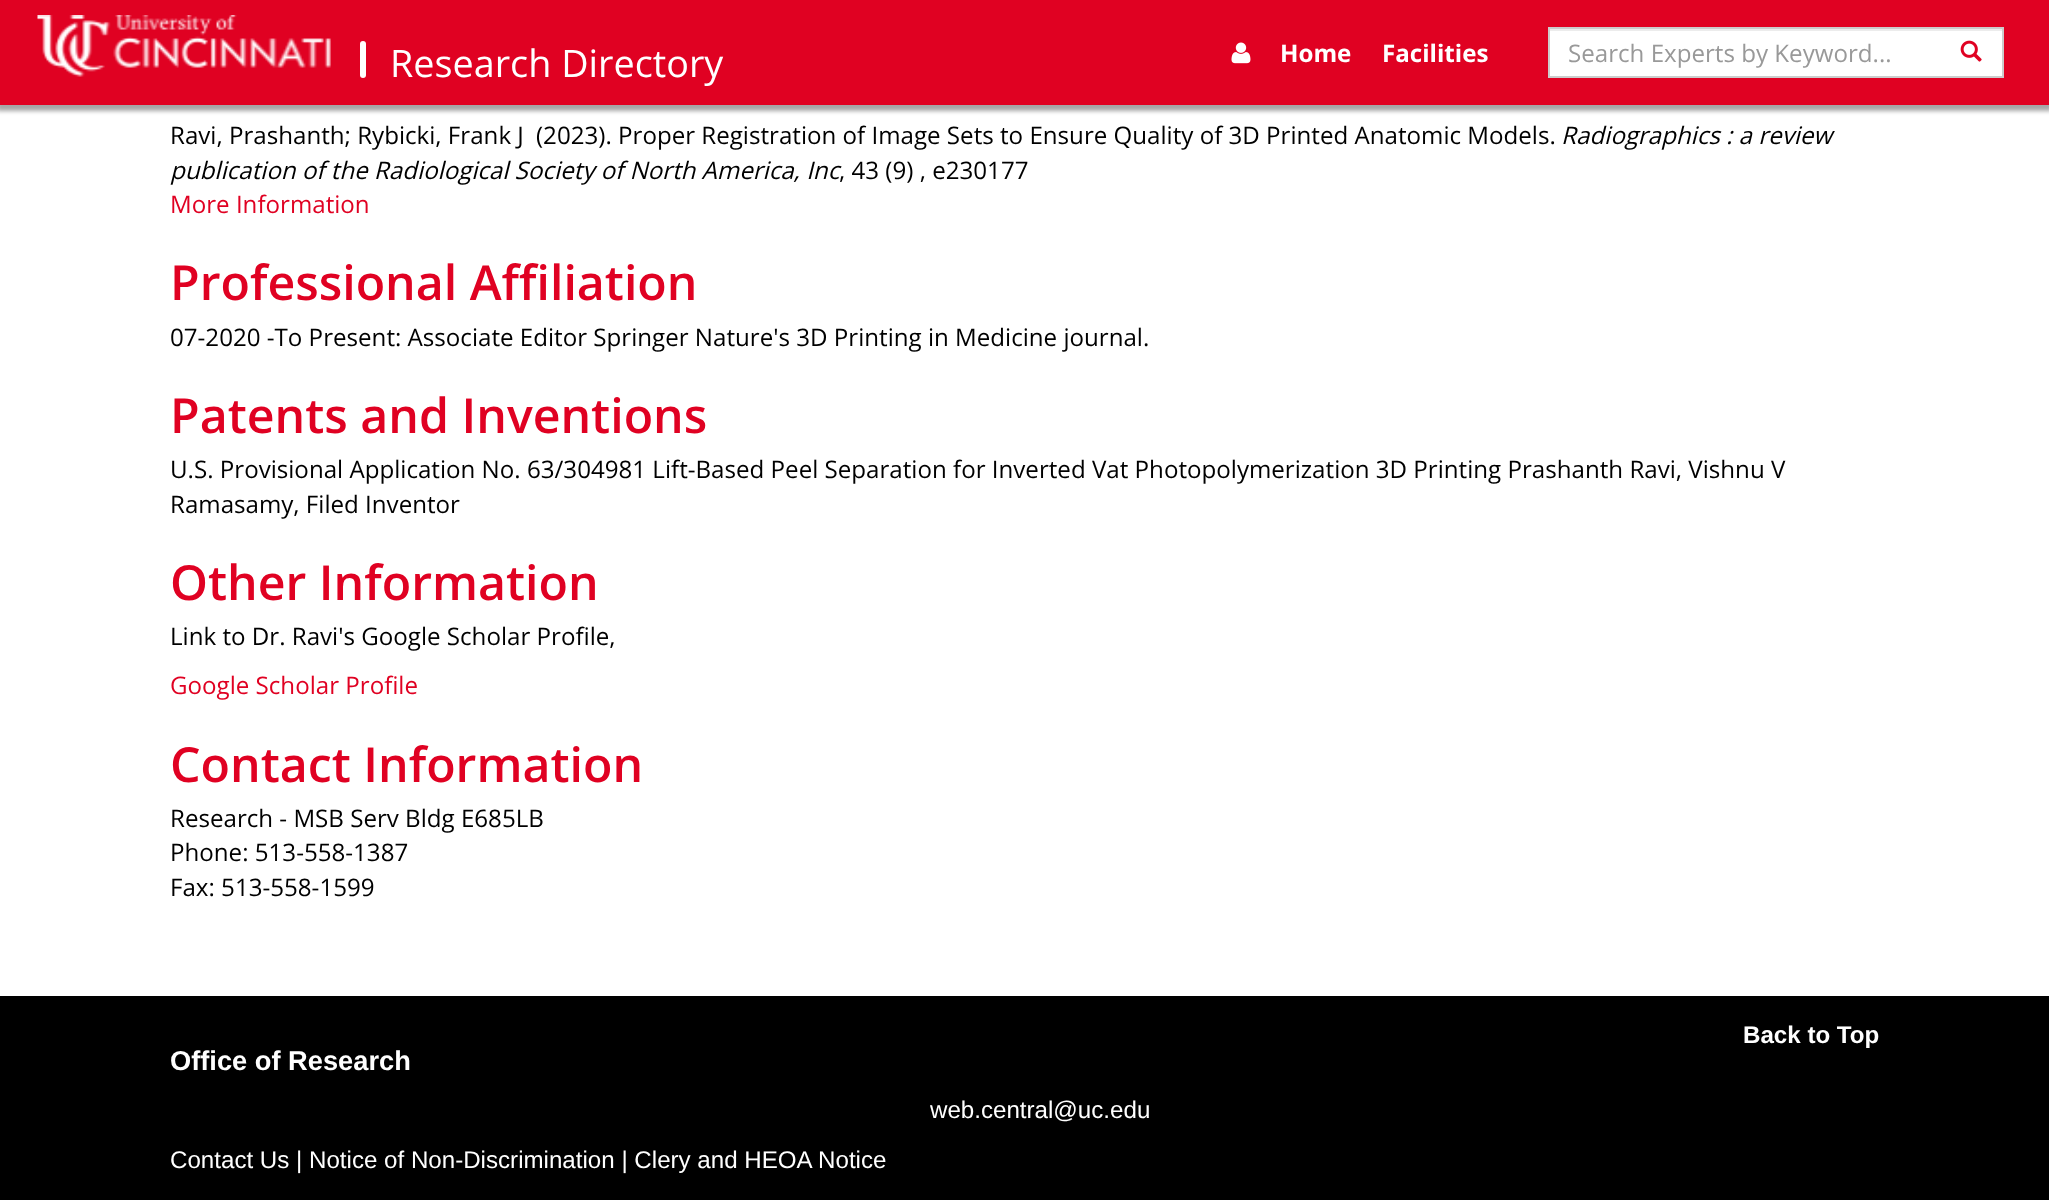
<?xml version="1.0" encoding="UTF-8"?>
<svg xmlns="http://www.w3.org/2000/svg" width="2049" height="1200">
    <defs>
        <filter id="blur1" x="-50%" y="-200%" width="200%" height="500%"><feGaussianBlur stdDeviation="2"/></filter>
    </defs>
    <rect width="100%" height="100%" fill="#FFFFFF"/>
    <rect x="-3" y="0" width="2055" height="111" fill="#000000" fill-opacity="0.35" filter="url(#blur1)"/>
    <rect x="0" y="0" width="2049" height="105" fill="#E00122"/>
    <image x="37" y="15" width="294" height="62" href="img_01.png"/>
    <rect x="360" y="41" width="6" height="37" rx="3" fill="#FFFFFF"/>
    <text x="390" y="77" font-family="Open Sans" font-size="37.75" fill="#FFFFFF">Research Directory</text>
    <image x="1231" y="42" width="20" height="22" href="img_02.png"/>
    <text x="1280" y="62" font-family="Open Sans" font-size="24.13" font-weight="700" fill="#FFFFFF">Home</text>
    <text x="1382" y="62" font-family="Open Sans" font-size="24.13" font-weight="700" fill="#FFFFFF">Facilities</text>
    <rect x="1550" y="31" width="452" height="45" fill="#FFFFFF"/>
    <rect x="1550" y="29" width="453" height="2" fill="#ECECEC"/>
    <rect x="1549" y="28" width="454" height="49" fill="none" stroke="#CCCCCC" stroke-width="2"/>
    <text x="1568" y="62" font-family="Open Sans" font-size="24.13" fill="#999999">Search Experts by Keyword...</text>
    <image x="1960" y="40" width="22" height="22" href="img_03.png"/>
    <text x="170" y="144" font-family="Open Sans" font-size="24.13" fill="#000000">Ravi, Prashanth; Rybicki, Frank J</text>
    <text x="536" y="144" font-family="Open Sans" font-size="24.13" fill="#000000">(2023). Proper Registration of Image Sets to Ensure Quality of 3D Printed Anatomic Models.</text>
    <text x="1561" y="144" font-family="Open Sans" font-size="24.13" font-style="italic" fill="#000000">Radiographics : a review</text>
    <text x="170" y="179" font-family="Open Sans" font-size="24.13" font-style="italic" fill="#000000">publication of the Radiological Society of North America, Inc</text>
    <text x="839" y="179" font-family="Open Sans" font-size="24.13" fill="#000000">, 43 (9) , e230177</text>
    <text x="170" y="213" font-family="Open Sans" font-size="24.13" fill="#E00122">More Information</text>
    <text x="170" y="300" font-family="Open Sans" font-size="48.25" font-weight="600" fill="#E00122">Professional Affiliation</text>
    <text x="170" y="346" font-family="Open Sans" font-size="24.13" fill="#000000">07-2020 -To Present: Associate Editor Springer Nature's 3D Printing in Medicine journal.</text>
    <text x="170" y="433" font-family="Open Sans" font-size="48.25" font-weight="600" fill="#E00122">Patents and Inventions</text>
    <text font-family="Open Sans" font-size="24.13" fill="#000000">
        <tspan x="170" y="478">U.S. Provisional Application No. 63/304981 Lift-Based Peel Separation for Inverted Vat Photopolymerization 3D Printing Prashanth Ravi, Vishnu V</tspan>
        <tspan x="170" y="513">Ramasamy, Filed Inventor</tspan>
    </text>
    <text x="170" y="600" font-family="Open Sans" font-size="48.25" font-weight="600" fill="#E00122">Other Information</text>
    <text x="170" y="645" font-family="Open Sans" font-size="24.13" fill="#000000">Link to Dr. Ravi's Google Scholar Profile,</text>
    <text x="170" y="694" font-family="Open Sans" font-size="24.13" fill="#E00122">Google Scholar Profile</text>
    <text x="170" y="782" font-family="Open Sans" font-size="48.25" font-weight="600" fill="#E00122">Contact Information</text>
    <text font-family="Open Sans" font-size="24.13" fill="#000000">
        <tspan x="170" y="827">Research - MSB Serv Bldg E685LB</tspan>
        <tspan x="170" y="861">Phone: 513-558-1387</tspan>
        <tspan x="170" y="896">Fax: 513-558-1599</tspan>
    </text>
    <rect x="0" y="996" width="2049" height="204" fill="#000000"/>
    <text x="1743" y="1043" font-family="Liberation Sans" font-size="24.13" font-weight="700" fill="#FFFFFF">Back to Top</text>
    <text x="170" y="1070" font-family="Liberation Sans" font-size="27.25" font-weight="700" fill="#FFFFFF">Office of Research</text>
    <text x="930" y="1118" font-family="Liberation Sans" font-size="24.13" fill="#FFFFFF">web.central@uc.edu</text>
    <text x="170" y="1168" font-family="Liberation Sans" font-size="24.13" fill="#FFFFFF">Contact Us | Notice of Non-Discrimination | Clery and HEOA Notice</text>
</svg>
